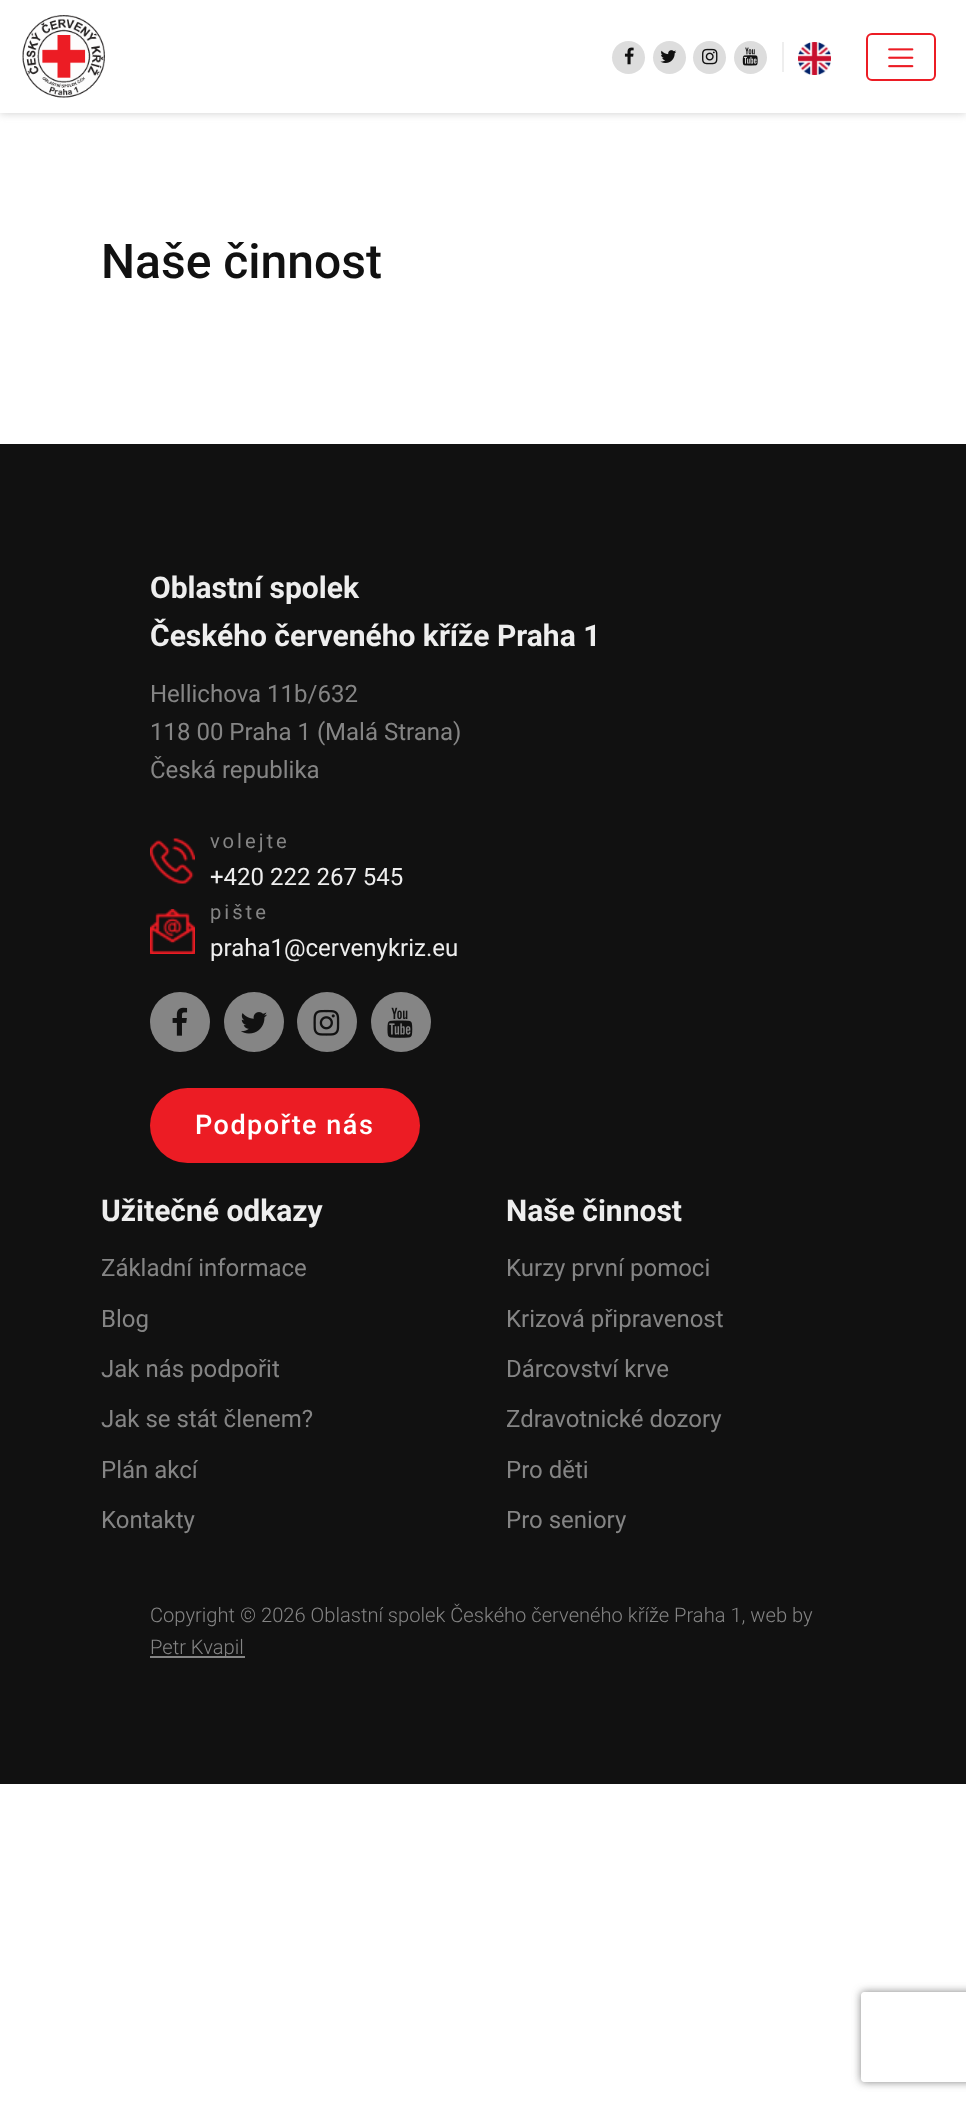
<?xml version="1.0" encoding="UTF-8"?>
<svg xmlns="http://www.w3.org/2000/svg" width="966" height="2102">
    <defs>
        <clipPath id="clip1"><path d="M 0 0 H 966 V 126 H 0 Z M 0 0 H 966 V 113 H 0 Z" clip-rule="evenodd"/></clipPath>
        <filter id="blur1" x="-50%" y="-200%" width="200%" height="500%"><feGaussianBlur stdDeviation="4"/></filter>
        <clipPath id="clip2"><path d="M 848 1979 H 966 V 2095 H 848 Z M 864 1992 H 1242 C 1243.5 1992 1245 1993.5 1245 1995 V 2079 C 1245 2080.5 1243.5 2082 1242 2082 H 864 C 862.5 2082 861 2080.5 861 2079 V 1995 C 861 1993.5 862.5 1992 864 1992 Z" clip-rule="evenodd"/></clipPath>
    </defs>
    <rect width="100%" height="100%" fill="#FFFFFF"/>
    <g clip-path="url(#clip1)">
        <rect x="0" y="0" width="966" height="113" fill="#CCCCCC" filter="url(#blur1)"/>
    </g>
    <image x="22" y="15" width="83" height="83" href="img_01.png"/>
    <circle cx="628.5" cy="57.5" r="16.5" fill="#DDDDDD"/>
    <image x="624" y="47" width="10" height="18" href="img_02.png"/>
    <circle cx="669.5" cy="57.5" r="16.5" fill="#DDDDDD"/>
    <image x="660" y="50" width="17" height="13" href="img_03.png"/>
    <circle cx="709.5" cy="57.5" r="16.5" fill="#DDDDDD"/>
    <image x="702" y="48" width="16" height="17" href="img_04.png"/>
    <circle cx="750.5" cy="57.5" r="16.5" fill="#DDDDDD"/>
    <image x="742" y="47" width="16" height="19" href="img_05.png"/>
    <rect x="782" y="42" width="2" height="30" fill="#EEEEEE"/>
    <image x="798" y="42" width="33" height="33" href="img_06.png"/>
    <rect x="867" y="34" width="68" height="46" rx="5" fill="none" stroke="#EC1C24" stroke-width="2"/>
    <image x="888" y="48" width="26" height="20" href="img_07.png"/>
    <text x="101" y="278" font-family="Roboto" font-size="48" font-weight="500" fill="#111111">Naše činnost</text>
    <rect x="0" y="444" width="966" height="1340" fill="#111111"/>
    <text font-family="Roboto" font-size="30" font-weight="700" fill="#EEEEEE">
        <tspan x="150" y="598">Oblastní spolek</tspan>
        <tspan x="150" y="646">Českého červeného kříže Praha 1</tspan>
    </text>
    <text font-family="Roboto" font-size="24" fill="#858585">
        <tspan x="150" y="702">Hellichova 11b/632</tspan>
        <tspan x="150" y="740">118 00 Praha 1 (Malá Strana)</tspan>
        <tspan x="150" y="778">Česká republika</tspan>
    </text>
    <image x="150" y="838" width="45" height="46" href="img_08.png"/>
    <text x="210" y="848" font-family="Roboto" font-size="20.15" letter-spacing="3" fill="#858585">volejte</text>
    <text x="210" y="885" font-family="Roboto" font-size="24" fill="#EEEEEE">+420 222 267 545</text>
    <image x="150" y="909" width="45" height="45" href="img_09.png"/>
    <text x="210" y="919" font-family="Roboto" font-size="20.15" letter-spacing="3" fill="#858585">pište</text>
    <text x="210" y="956" font-family="Roboto" font-size="24" fill="#EEEEEE">praha1@cervenykriz.eu</text>
    <circle cx="180" cy="1022" r="30" fill="#858585"/>
    <image x="172" y="1007" width="16" height="29" href="img_10.png"/>
    <circle cx="254" cy="1022" r="30" fill="#858585"/>
    <image x="241" y="1012" width="26" height="22" href="img_11.png"/>
    <circle cx="327" cy="1022" r="30" fill="#858585"/>
    <image x="313" y="1009" width="27" height="27" href="img_12.png"/>
    <circle cx="401" cy="1022" r="30" fill="#858585"/>
    <image x="387" y="1007" width="26" height="31" href="img_13.png"/>
    <rect x="150" y="1088" width="270" height="75" rx="37.5" fill="#EC1C24"/>
    <text x="195" y="1134" font-family="Roboto" font-size="27" font-weight="500" letter-spacing="1.5" fill="#FFFFFF">Podpořte nás</text>
    <text x="101" y="1221" font-family="Roboto" font-size="30" font-weight="700" fill="#EEEEEE">Užitečné odkazy</text>
    <text x="101" y="1276" font-family="Roboto" font-size="24" fill="#858585">Základní informace</text>
    <text x="101" y="1327" font-family="Roboto" font-size="24" fill="#858585">Blog</text>
    <text x="101" y="1377" font-family="Roboto" font-size="24" fill="#858585">Jak nás podpořit</text>
    <text x="101" y="1427" font-family="Roboto" font-size="24" fill="#858585">Jak se stát členem?</text>
    <text x="101" y="1478" font-family="Roboto" font-size="24" fill="#858585">Plán akcí</text>
    <text x="101" y="1528" font-family="Roboto" font-size="24" fill="#858585">Kontakty</text>
    <text x="506" y="1221" font-family="Roboto" font-size="30" font-weight="700" fill="#EEEEEE">Naše činnost</text>
    <text x="506" y="1276" font-family="Roboto" font-size="24" fill="#858585">Kurzy první pomoci</text>
    <text x="506" y="1327" font-family="Roboto" font-size="24" fill="#858585">Krizová připravenost</text>
    <text x="506" y="1377" font-family="Roboto" font-size="24" fill="#858585">Dárcovství krve</text>
    <text x="506" y="1427" font-family="Roboto" font-size="24" fill="#858585">Zdravotnické dozory</text>
    <text x="506" y="1478" font-family="Roboto" font-size="24" fill="#858585">Pro děti</text>
    <text x="506" y="1528" font-family="Roboto" font-size="24" fill="#858585">Pro seniory</text>
    <text x="150" y="1622" font-family="Roboto" font-size="20.15" font-weight="300" fill="#858585">Copyright © 2026 Oblastní spolek Českého červeného kříže Praha 1, web by</text>
    <rect x="150" y="1656" width="95" height="2" fill="#858585"/>
    <text x="150" y="1654" font-family="Roboto" font-size="20.15" font-weight="300" fill="#858585">Petr Kvapil</text>
    <g clip-path="url(#clip2)">
        <rect x="861" y="1992" width="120" height="90" rx="3" fill="#808080" filter="url(#blur1)"/>
    </g>
</svg>
